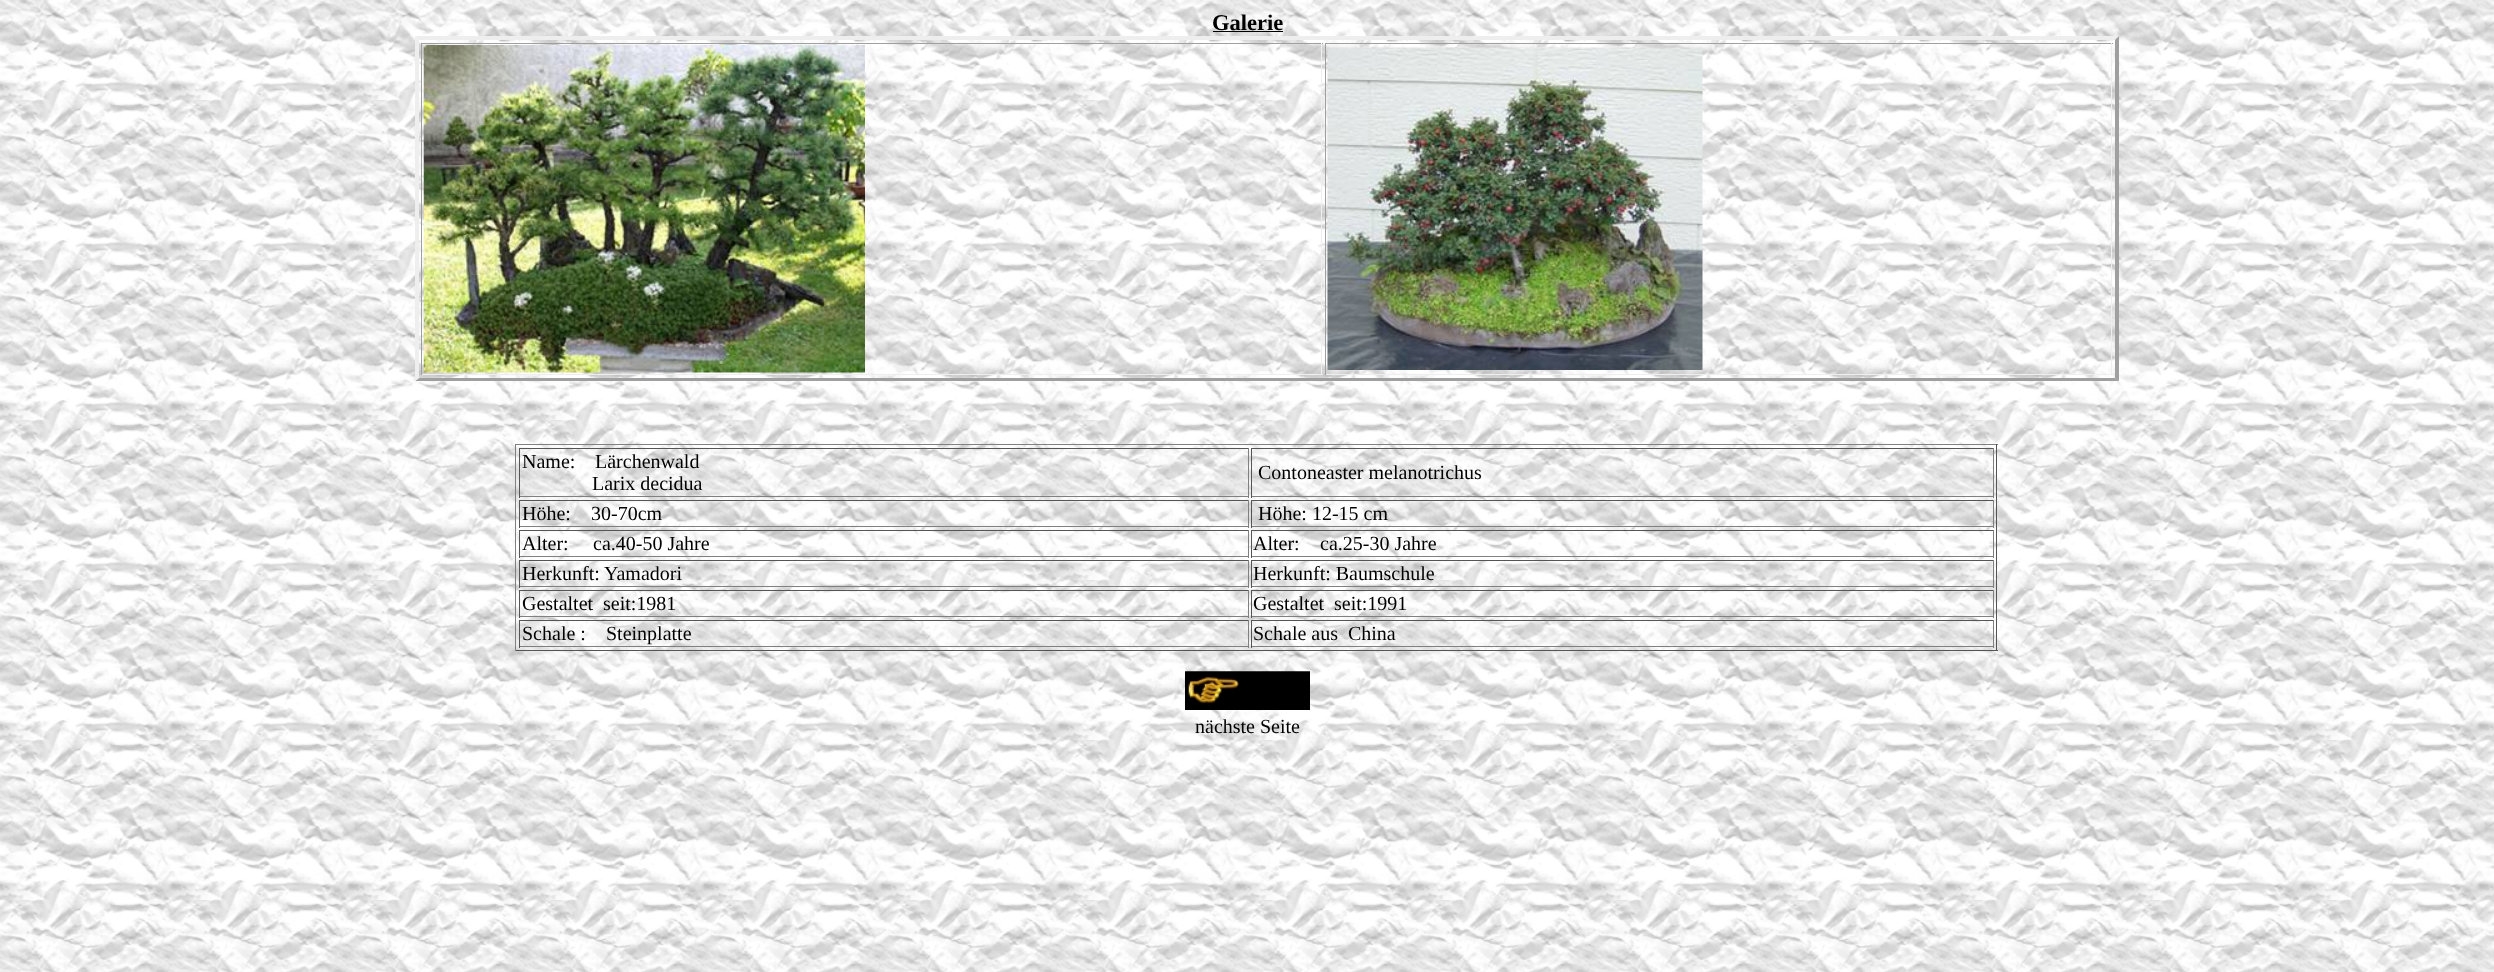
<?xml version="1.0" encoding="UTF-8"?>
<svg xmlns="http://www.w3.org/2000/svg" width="2494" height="972">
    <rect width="100%" height="100%" fill="#FFFFFF"/>
    <image x="0" y="0" width="2494" height="972" href="img_01.png"/>
    <text x="1212" y="30" font-family="Liberation Serif" font-size="22.5" font-weight="700" fill="#000000">Galerie</text>
    <rect x="1213" y="31" width="70" height="1" fill="#000000"/>
    <path d="M 415 36 H 2119 L 2115 40 H 419 Z" fill="#EEEEEE"/>
    <path d="M 2119 36 V 381 L 2115 378 V 40 Z" fill="#9F9F9F"/>
    <path d="M 2119 381 H 415 L 419 378 H 2115 Z" fill="#9F9F9F"/>
    <path d="M 415 381 V 36 L 419 40 V 378 Z" fill="#EEEEEE"/>
    <rect x="421" y="43" width="902" height="1" fill="#9F9F9F"/>
    <rect x="1321" y="43" width="1" height="332" fill="#EEEEEE"/>
    <rect x="421" y="374" width="902" height="1" fill="#EEEEEE"/>
    <rect x="421" y="43" width="1" height="332" fill="#9F9F9F"/>
    <image x="423" y="45" width="442" height="328" href="img_02.png"/>
    <rect x="1325" y="43" width="788" height="1" fill="#9F9F9F"/>
    <rect x="2111" y="43" width="1" height="332" fill="#EEEEEE"/>
    <rect x="1325" y="374" width="788" height="1" fill="#EEEEEE"/>
    <rect x="1325" y="43" width="1" height="332" fill="#9F9F9F"/>
    <image x="1327" y="47" width="376" height="323" href="img_03.png"/>
    <rect x="515" y="444" width="1483" height="1" fill="#808080"/>
    <rect x="1996" y="444" width="1" height="207" fill="#555555"/>
    <rect x="515" y="650" width="1483" height="1" fill="#555555"/>
    <rect x="515" y="444" width="1" height="207" fill="#808080"/>
    <rect x="519" y="448" width="730" height="1" fill="#555555"/>
    <rect x="1248" y="448" width="1" height="50" fill="#808080"/>
    <rect x="519" y="496" width="730" height="1" fill="#808080"/>
    <rect x="519" y="448" width="1" height="50" fill="#555555"/>
    <text x="522" y="468" font-family="Liberation Serif" font-size="20" fill="#000000">Name:</text>
    <text x="595" y="468" font-family="Liberation Serif" font-size="20" fill="#000000">Lärchenwald</text>
    <text x="592" y="490" font-family="Liberation Serif" font-size="20" fill="#000000">Larix decidua</text>
    <rect x="1251" y="448" width="743" height="1" fill="#555555"/>
    <rect x="1993" y="448" width="1" height="50" fill="#808080"/>
    <rect x="1251" y="496" width="743" height="1" fill="#808080"/>
    <rect x="1251" y="448" width="1" height="50" fill="#555555"/>
    <text x="1258" y="479" font-family="Liberation Serif" font-size="20" fill="#000000">Contoneaster melanotrichus</text>
    <rect x="519" y="500" width="730" height="1" fill="#555555"/>
    <rect x="1248" y="500" width="1" height="28" fill="#808080"/>
    <rect x="519" y="526" width="730" height="1" fill="#808080"/>
    <rect x="519" y="500" width="1" height="28" fill="#555555"/>
    <text x="522" y="520" font-family="Liberation Serif" font-size="20" fill="#000000">Höhe:</text>
    <text x="591" y="520" font-family="Liberation Serif" font-size="20" fill="#000000">30-70cm</text>
    <rect x="1251" y="500" width="743" height="1" fill="#555555"/>
    <rect x="1993" y="500" width="1" height="28" fill="#808080"/>
    <rect x="1251" y="526" width="743" height="1" fill="#808080"/>
    <rect x="1251" y="500" width="1" height="28" fill="#555555"/>
    <text x="1258" y="520" font-family="Liberation Serif" font-size="20" fill="#000000">Höhe: 12-15 cm</text>
    <rect x="519" y="530" width="730" height="1" fill="#555555"/>
    <rect x="1248" y="530" width="1" height="28" fill="#808080"/>
    <rect x="519" y="556" width="730" height="1" fill="#808080"/>
    <rect x="519" y="530" width="1" height="28" fill="#555555"/>
    <text x="522" y="550" font-family="Liberation Serif" font-size="20" fill="#000000">Alter:</text>
    <text x="593" y="550" font-family="Liberation Serif" font-size="20" fill="#000000">ca.40-50 Jahre</text>
    <rect x="1251" y="530" width="743" height="1" fill="#555555"/>
    <rect x="1993" y="530" width="1" height="28" fill="#808080"/>
    <rect x="1251" y="556" width="743" height="1" fill="#808080"/>
    <rect x="1251" y="530" width="1" height="28" fill="#555555"/>
    <text x="1253" y="550" font-family="Liberation Serif" font-size="20" fill="#000000">Alter:</text>
    <text x="1320" y="550" font-family="Liberation Serif" font-size="20" fill="#000000">ca.25-30 Jahre</text>
    <rect x="519" y="560" width="730" height="1" fill="#555555"/>
    <rect x="1248" y="560" width="1" height="28" fill="#808080"/>
    <rect x="519" y="586" width="730" height="1" fill="#808080"/>
    <rect x="519" y="560" width="1" height="28" fill="#555555"/>
    <text x="522" y="580" font-family="Liberation Serif" font-size="20" fill="#000000">Herkunft: Yamadori</text>
    <rect x="1251" y="560" width="743" height="1" fill="#555555"/>
    <rect x="1993" y="560" width="1" height="28" fill="#808080"/>
    <rect x="1251" y="586" width="743" height="1" fill="#808080"/>
    <rect x="1251" y="560" width="1" height="28" fill="#555555"/>
    <text x="1253" y="580" font-family="Liberation Serif" font-size="20" fill="#000000">Herkunft: Baumschule</text>
    <rect x="519" y="590" width="730" height="1" fill="#555555"/>
    <rect x="1248" y="590" width="1" height="28" fill="#808080"/>
    <rect x="519" y="616" width="730" height="1" fill="#808080"/>
    <rect x="519" y="590" width="1" height="28" fill="#555555"/>
    <text x="522" y="610" font-family="Liberation Serif" font-size="20" fill="#000000">Gestaltet</text>
    <text x="603" y="610" font-family="Liberation Serif" font-size="20" fill="#000000">seit:1981</text>
    <rect x="1251" y="590" width="743" height="1" fill="#555555"/>
    <rect x="1993" y="590" width="1" height="28" fill="#808080"/>
    <rect x="1251" y="616" width="743" height="1" fill="#808080"/>
    <rect x="1251" y="590" width="1" height="28" fill="#555555"/>
    <text x="1253" y="610" font-family="Liberation Serif" font-size="20" fill="#000000">Gestaltet</text>
    <text x="1334" y="610" font-family="Liberation Serif" font-size="20" fill="#000000">seit:1991</text>
    <rect x="519" y="620" width="730" height="1" fill="#555555"/>
    <rect x="1248" y="620" width="1" height="28" fill="#808080"/>
    <rect x="519" y="646" width="730" height="1" fill="#808080"/>
    <rect x="519" y="620" width="1" height="28" fill="#555555"/>
    <text x="522" y="640" font-family="Liberation Serif" font-size="20" fill="#000000">Schale :</text>
    <text x="606" y="640" font-family="Liberation Serif" font-size="20" fill="#000000">Steinplatte</text>
    <rect x="1251" y="620" width="743" height="1" fill="#555555"/>
    <rect x="1993" y="620" width="1" height="28" fill="#808080"/>
    <rect x="1251" y="646" width="743" height="1" fill="#808080"/>
    <rect x="1251" y="620" width="1" height="28" fill="#555555"/>
    <text x="1253" y="640" font-family="Liberation Serif" font-size="20" fill="#000000" xml:space="preserve">Schale aus  China</text>
    <image x="1185" y="671" width="125" height="39" href="img_04.png"/>
    <text x="1195" y="733" font-family="Liberation Serif" font-size="20" fill="#000000">nächste Seite</text>
</svg>
